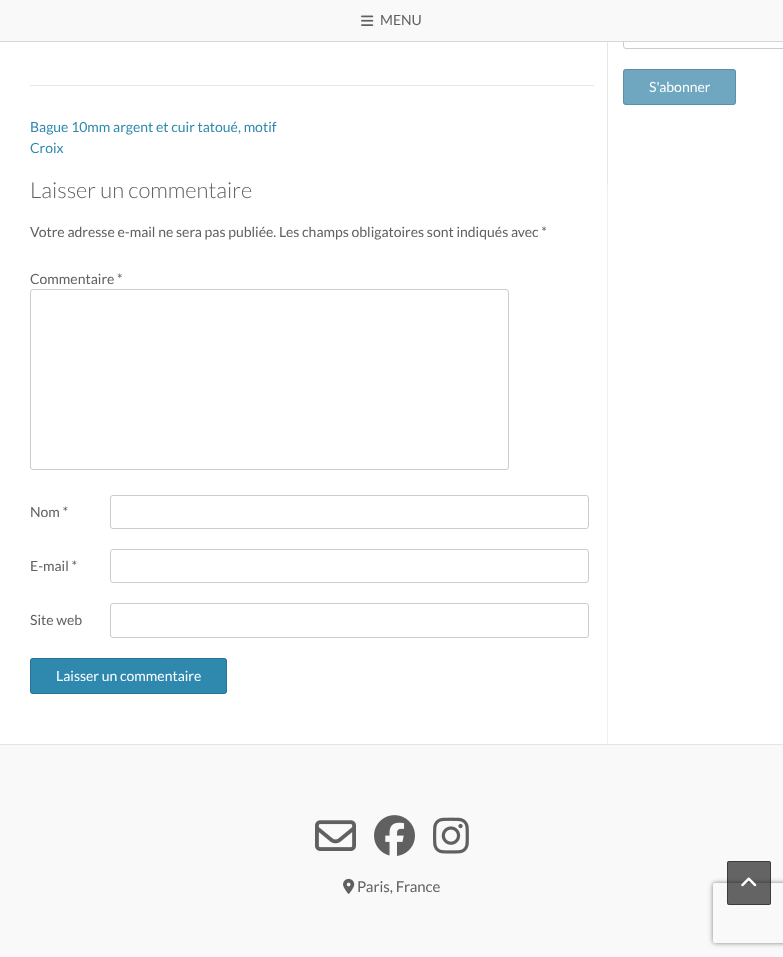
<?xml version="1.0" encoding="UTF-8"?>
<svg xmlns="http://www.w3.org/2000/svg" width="783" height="957">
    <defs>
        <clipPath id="clip1"><path d="M 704 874 H 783 V 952 H 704 Z M 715 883 H 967 C 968 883 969 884 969 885 V 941 C 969 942 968 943 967 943 H 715 C 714 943 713 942 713 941 V 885 C 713 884 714 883 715 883 Z" clip-rule="evenodd"/></clipPath>
        <filter id="blur1" x="-50%" y="-200%" width="200%" height="500%"><feGaussianBlur stdDeviation="2.5"/></filter>
    </defs>
    <rect width="100%" height="100%" fill="#FFFFFF"/>
    <rect x="607" y="185" width="1" height="559" fill="#F0F0F0"/>
    <rect x="623.5" y="20.5" width="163" height="28" rx="2.5" fill="none" stroke="#CCCCCC"/>
    <rect x="0" y="0" width="783" height="41" fill="#F9F9F9"/>
    <rect x="0" y="41" width="783" height="1" fill="#D6D6D6"/>
    <image x="361" y="15" width="13" height="11" href="img_01.png"/>
    <text x="380" y="25" font-family="Lato" font-size="14" fill="#606060">MENU</text>
    <rect x="607" y="42" width="1" height="143" fill="#E6E6E6"/>
    <rect x="623" y="69" width="113" height="36" rx="3" fill="#6EA7BF"/>
    <rect x="623.5" y="69.5" width="112" height="35" rx="2.5" fill="none" stroke="#000000" stroke-opacity="0.14"/>
    <text x="649" y="92" font-family="Lato" font-size="14" fill="#FFFFFF">S'abonner</text>
    <rect x="30" y="85" width="564" height="1" fill="#E6E6E6"/>
    <text font-family="Lato" font-size="14" fill="#2F89AF">
        <tspan x="30" y="132">Bague 10mm argent et cuir tatoué, motif</tspan>
        <tspan x="30" y="153">Croix</tspan>
    </text>
    <text x="30" y="198" font-family="Lato" font-size="22" font-weight="300" fill="#606060">Laisser un commentaire</text>
    <text x="30" y="237" font-family="Lato" font-size="14" fill="#606060">Votre adresse e-mail ne sera pas publiée. Les champs obligatoires sont indiqués avec *</text>
    <text x="30" y="284" font-family="Lato" font-size="14" fill="#606060">Commentaire *</text>
    <rect x="30.5" y="289.5" width="478" height="180" rx="2.5" fill="none" stroke="#CCCCCC"/>
    <text x="30" y="517" font-family="Lato" font-size="14" fill="#606060">Nom *</text>
    <rect x="110.5" y="495.5" width="478" height="33" rx="2.5" fill="none" stroke="#CCCCCC"/>
    <text x="30" y="571" font-family="Lato" font-size="14" fill="#606060">E-mail *</text>
    <rect x="110.5" y="549.5" width="478" height="33" rx="2.5" fill="none" stroke="#CCCCCC"/>
    <text x="30" y="625" font-family="Lato" font-size="14" fill="#606060">Site web</text>
    <rect x="110.5" y="603.5" width="478" height="34" rx="2.5" fill="none" stroke="#CCCCCC"/>
    <rect x="30" y="658" width="197" height="36" rx="3" fill="#2F89AF"/>
    <rect x="30.5" y="658.5" width="196" height="35" rx="2.5" fill="none" stroke="#000000" stroke-opacity="0.14"/>
    <text x="56" y="681" font-family="Lato" font-size="14" fill="#FFFFFF">Laisser un commentaire</text>
    <rect x="0" y="745" width="783" height="212" fill="#F9F9F9"/>
    <rect x="0" y="744" width="783" height="1" fill="#E5E5E5"/>
    <image x="315" y="820" width="41" height="31" href="img_02.png"/>
    <image x="374" y="815" width="41" height="41" href="img_03.png"/>
    <image x="433" y="817" width="36" height="37" href="img_04.png"/>
    <image x="343" y="878" width="12" height="16" href="img_05.png"/>
    <text x="357" y="892" font-family="Lato" font-size="15" fill="#606060">Paris, France</text>
    <g clip-path="url(#clip1)">
        <rect x="713" y="883" width="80" height="60" rx="2" fill="#808080" filter="url(#blur1)"/>
    </g>
    <rect x="727" y="861" width="44" height="44" rx="2" fill="#000000" fill-opacity="0.6"/>
    <rect x="727.5" y="861.5" width="43" height="43" rx="1.5" fill="none" stroke="#000000" stroke-opacity="0.4"/>
    <image x="741" y="877" width="16" height="10" href="img_06.png"/>
</svg>
